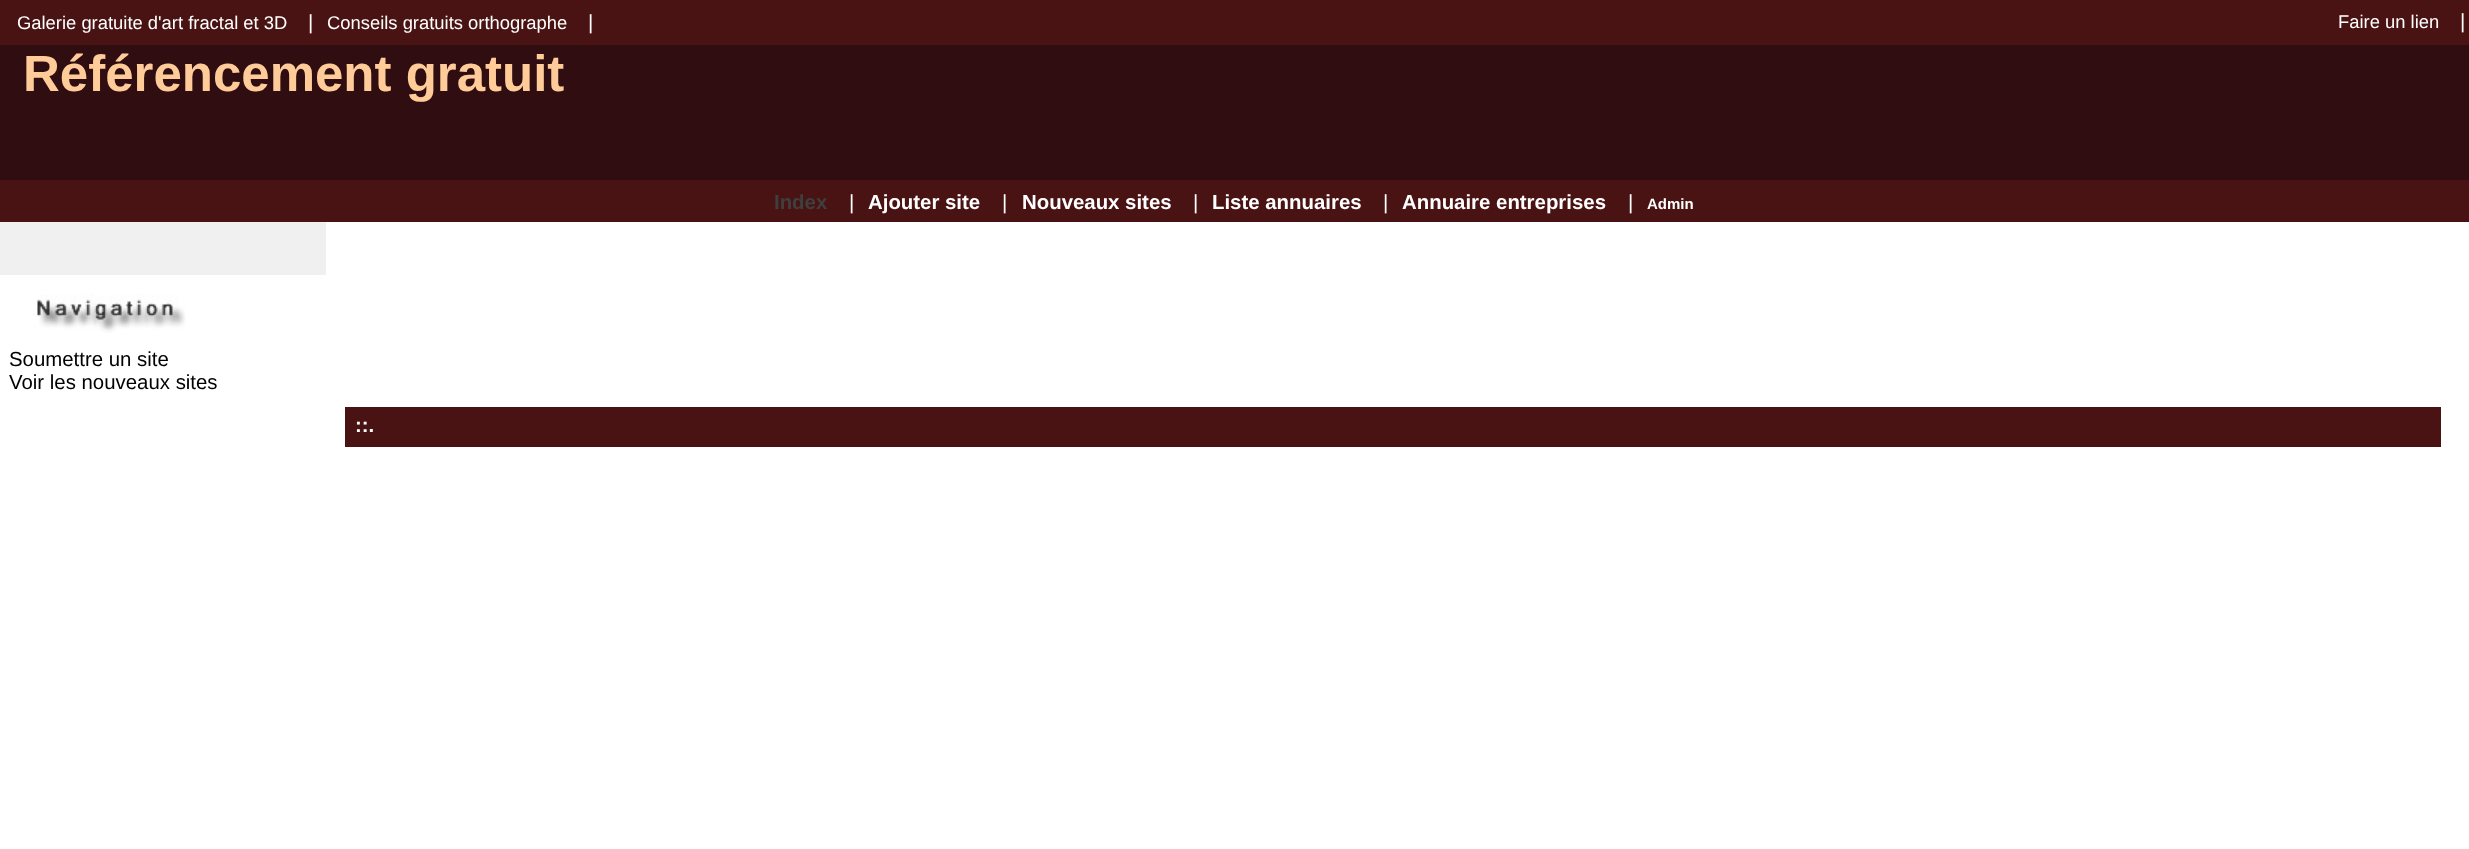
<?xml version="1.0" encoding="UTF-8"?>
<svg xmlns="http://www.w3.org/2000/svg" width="2469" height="849">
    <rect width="100%" height="100%" fill="#FFFFFF"/>
    <rect x="0" y="0" width="2469" height="45" fill="#4A1313"/>
    <text x="17" y="29" font-family="Liberation Sans" font-size="18.4" fill="#FFFFFF">Galerie gratuite d'art fractal et 3D</text>
    <text x="308" y="29" font-family="Liberation Sans" font-size="20.4" fill="#FFFFFF">|</text>
    <text x="327" y="29" font-family="Liberation Sans" font-size="18.4" fill="#FFFFFF">Conseils gratuits orthographe</text>
    <text x="588" y="29" font-family="Liberation Sans" font-size="20.4" fill="#FFFFFF">|</text>
    <text x="2338" y="28" font-family="Liberation Sans" font-size="18.4" fill="#FFFFFF">Faire un lien</text>
    <text x="2460" y="28" font-family="Liberation Sans" font-size="20.4" fill="#FFFFFF">|</text>
    <rect x="0" y="45" width="2469" height="135" fill="#2F0D10"/>
    <text x="23" y="91" font-family="Liberation Sans" font-size="51" font-weight="700" fill="#FFCC99">Référencement gratuit</text>
    <rect x="0" y="180" width="2469" height="42" fill="#4A1313"/>
    <text x="774" y="209" font-family="Liberation Sans" font-size="20.4" font-weight="700" fill="#3F3F3F">Index</text>
    <text x="849" y="209" font-family="Liberation Sans" font-size="20.4" fill="#FFFFFF">|</text>
    <text x="868" y="209" font-family="Liberation Sans" font-size="20.4" font-weight="700" fill="#FFFFFF">Ajouter site</text>
    <text x="1002" y="209" font-family="Liberation Sans" font-size="20.4" fill="#FFFFFF">|</text>
    <text x="1022" y="209" font-family="Liberation Sans" font-size="20.4" font-weight="700" fill="#FFFFFF">Nouveaux sites</text>
    <text x="1193" y="209" font-family="Liberation Sans" font-size="20.4" fill="#FFFFFF">|</text>
    <text x="1212" y="209" font-family="Liberation Sans" font-size="20.4" font-weight="700" fill="#FFFFFF">Liste annuaires</text>
    <text x="1383" y="209" font-family="Liberation Sans" font-size="20.4" fill="#FFFFFF">|</text>
    <text x="1402" y="209" font-family="Liberation Sans" font-size="20.4" font-weight="700" fill="#FFFFFF">Annuaire entreprises</text>
    <text x="1628" y="209" font-family="Liberation Sans" font-size="20.4" fill="#FFFFFF">|</text>
    <text x="1647" y="209" font-family="Liberation Sans" font-size="15" font-weight="700" fill="#FFFFFF">Admin</text>
    <rect x="0" y="222" width="326" height="53" fill="#F0F0F0"/>
    <image x="37" y="294" width="149" height="39" href="img_01.png"/>
    <text font-family="Liberation Sans" font-size="20.4" fill="#000000">
        <tspan x="9" y="366">Soumettre un site</tspan>
        <tspan x="9" y="389">Voir les nouveaux sites</tspan>
    </text>
    <rect x="345" y="407" width="2096" height="40" fill="#4A1313"/>
    <text x="355" y="432" font-family="Liberation Sans" font-size="20.4" font-weight="700" fill="#FFFFFF">::.</text>
</svg>
